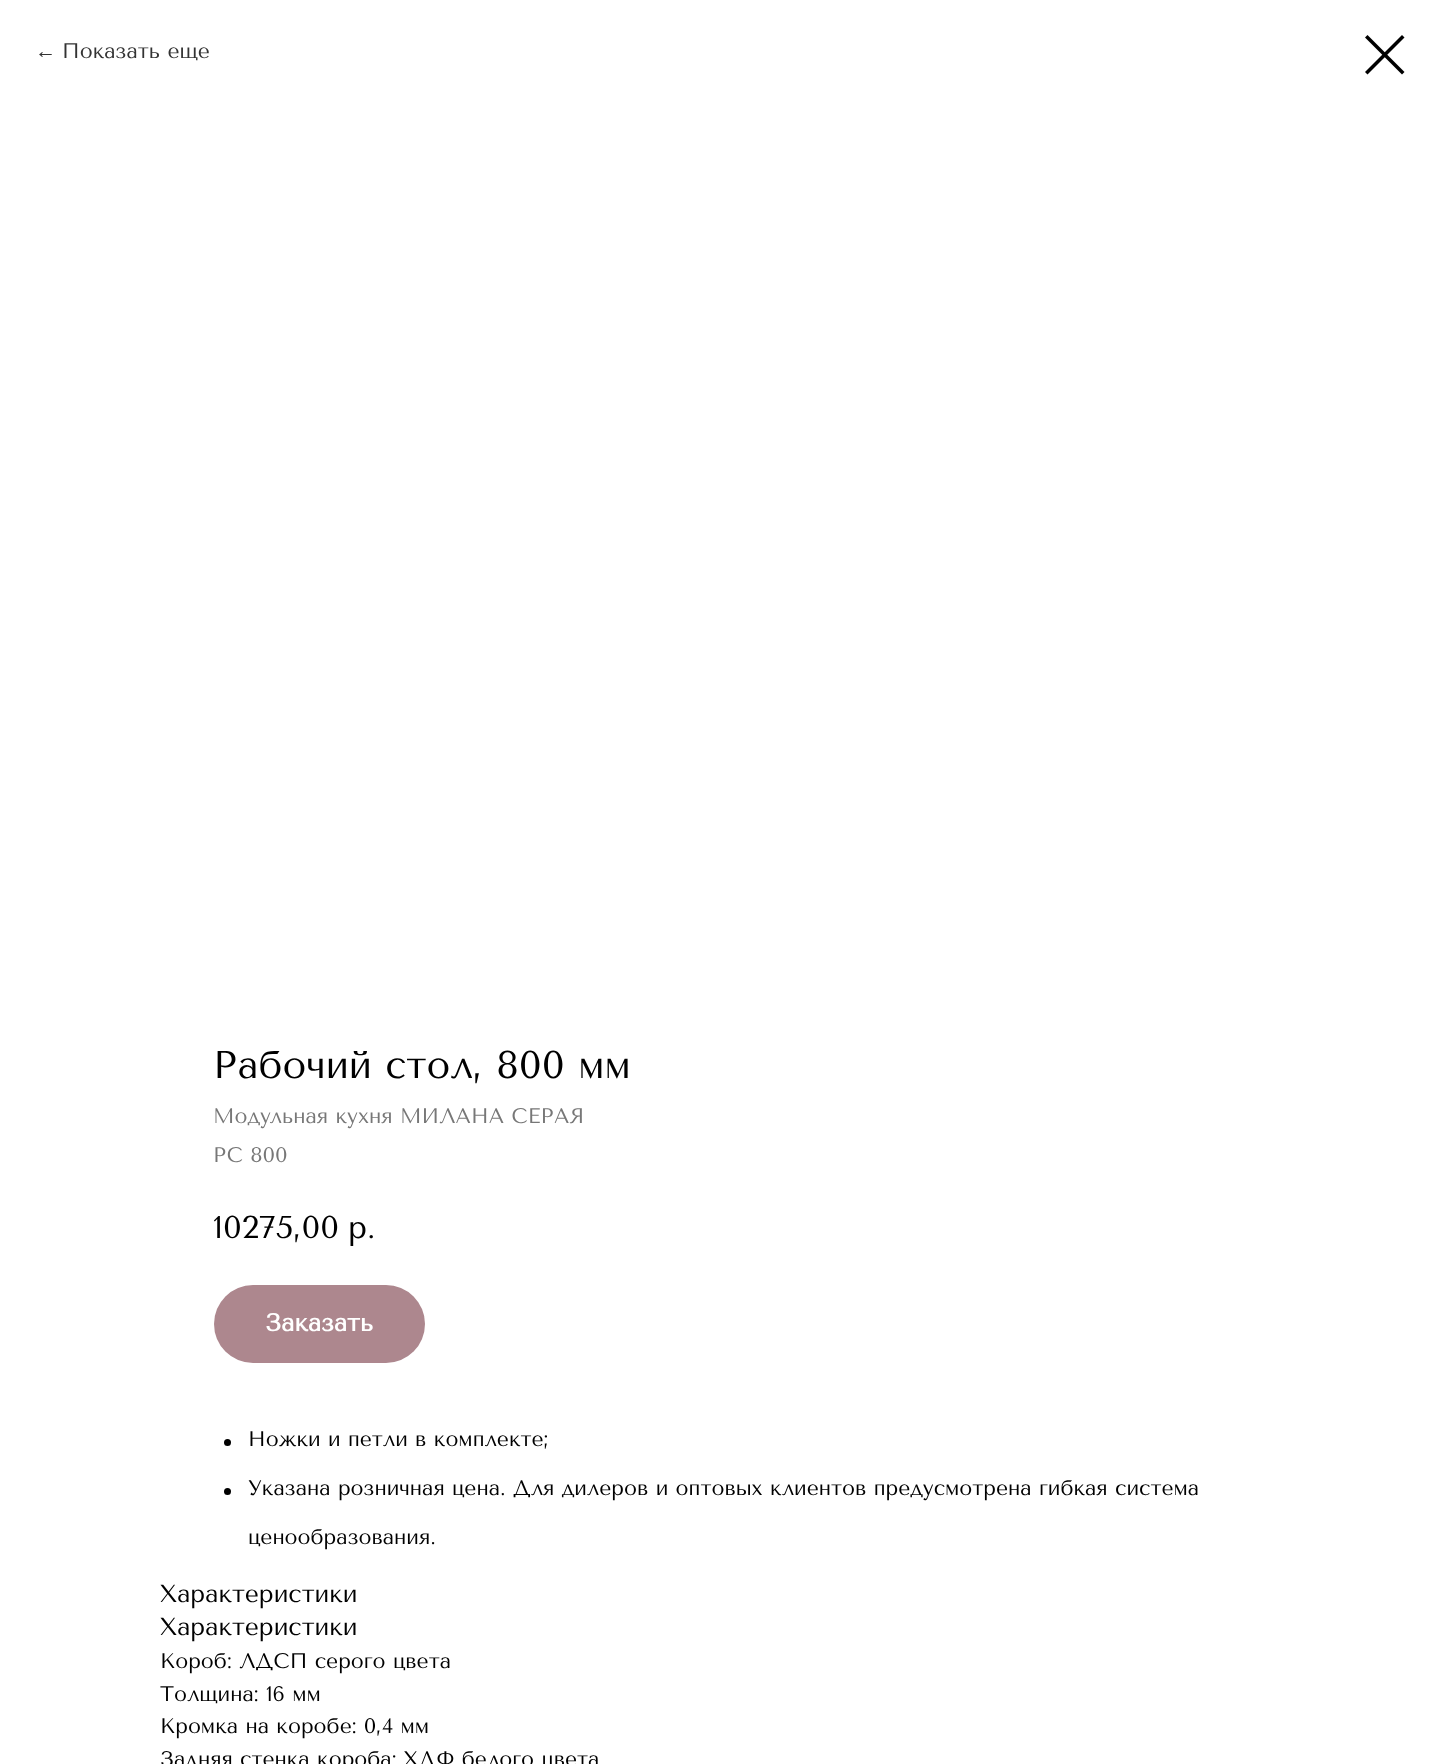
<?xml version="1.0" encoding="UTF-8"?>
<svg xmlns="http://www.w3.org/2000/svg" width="1439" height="1764">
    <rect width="100%" height="100%" fill="#FFFFFF"/>
    <text x="35" y="58" font-family="Liberation Sans" font-size="21" fill="#333333">←</text>
    <text x="62" y="58" font-family="Tenor Sans" font-size="21" fill="#333333">Показать еще</text>
    <path d="M 1365 37.5 L 1367.5 35 L 1404.5 72 L 1402 74.5 Z" fill="#000000" fill-rule="evenodd"/>
    <path d="M 1402 35 L 1404.5 37.5 L 1367.5 74.5 L 1365 72 Z" fill="#000000" fill-rule="evenodd"/>
    <text x="213" y="1078" font-family="Tenor Sans" font-size="38.5" fill="#000000">Рабочий стол, 800 мм</text>
    <text font-family="Tenor Sans" font-size="21" fill="#777777">
        <tspan x="213" y="1123">Модульная кухня МИЛАНА СЕРАЯ</tspan>
        <tspan x="213" y="1162">РС 800</tspan>
    </text>
    <text x="213" y="1238" font-family="Tenor Sans" font-size="31.5" fill="#000000">10275,00</text>
    <text x="348" y="1238" font-family="Tenor Sans" font-size="31.5" fill="#000000">р.</text>
    <rect x="214" y="1285" width="211" height="78" rx="39" fill="#AD878E"/>
    <text x="265" y="1331" font-family="Tenor Sans" font-size="24.5" font-weight="700" fill="#FFFFFF">Заказать</text>
    <circle cx="227.5" cy="1442.5" r="3.5" fill="#000000"/>
    <text x="248" y="1446" font-family="Tenor Sans" font-size="21" fill="#000000">Ножки и петли в комплекте;</text>
    <circle cx="227.5" cy="1491.5" r="3.5" fill="#000000"/>
    <text x="248" y="1495" font-family="Tenor Sans" font-size="21" fill="#000000">Указана розничная цена. Для дилеров и оптовых клиентов предусмотрена гибкая система</text>
    <text x="248" y="1544" font-family="Tenor Sans" font-size="21" fill="#000000">ценообразования.</text>
    <text font-family="Tenor Sans" font-size="24.5" fill="#000000">
        <tspan x="160" y="1602">Характеристики</tspan>
        <tspan x="160" y="1635">Характеристики</tspan>
    </text>
    <text font-family="Tenor Sans" font-size="21" fill="#000000">
        <tspan x="160" y="1668">Короб: ЛДСП серого цвета</tspan>
        <tspan x="160" y="1701">Толщина: 16 мм</tspan>
        <tspan x="160" y="1733">Кромка на коробе: 0,4 мм</tspan>
        <tspan x="160" y="1766">Задняя стенка короба: ХДФ белого цвета</tspan>
    </text>
</svg>
